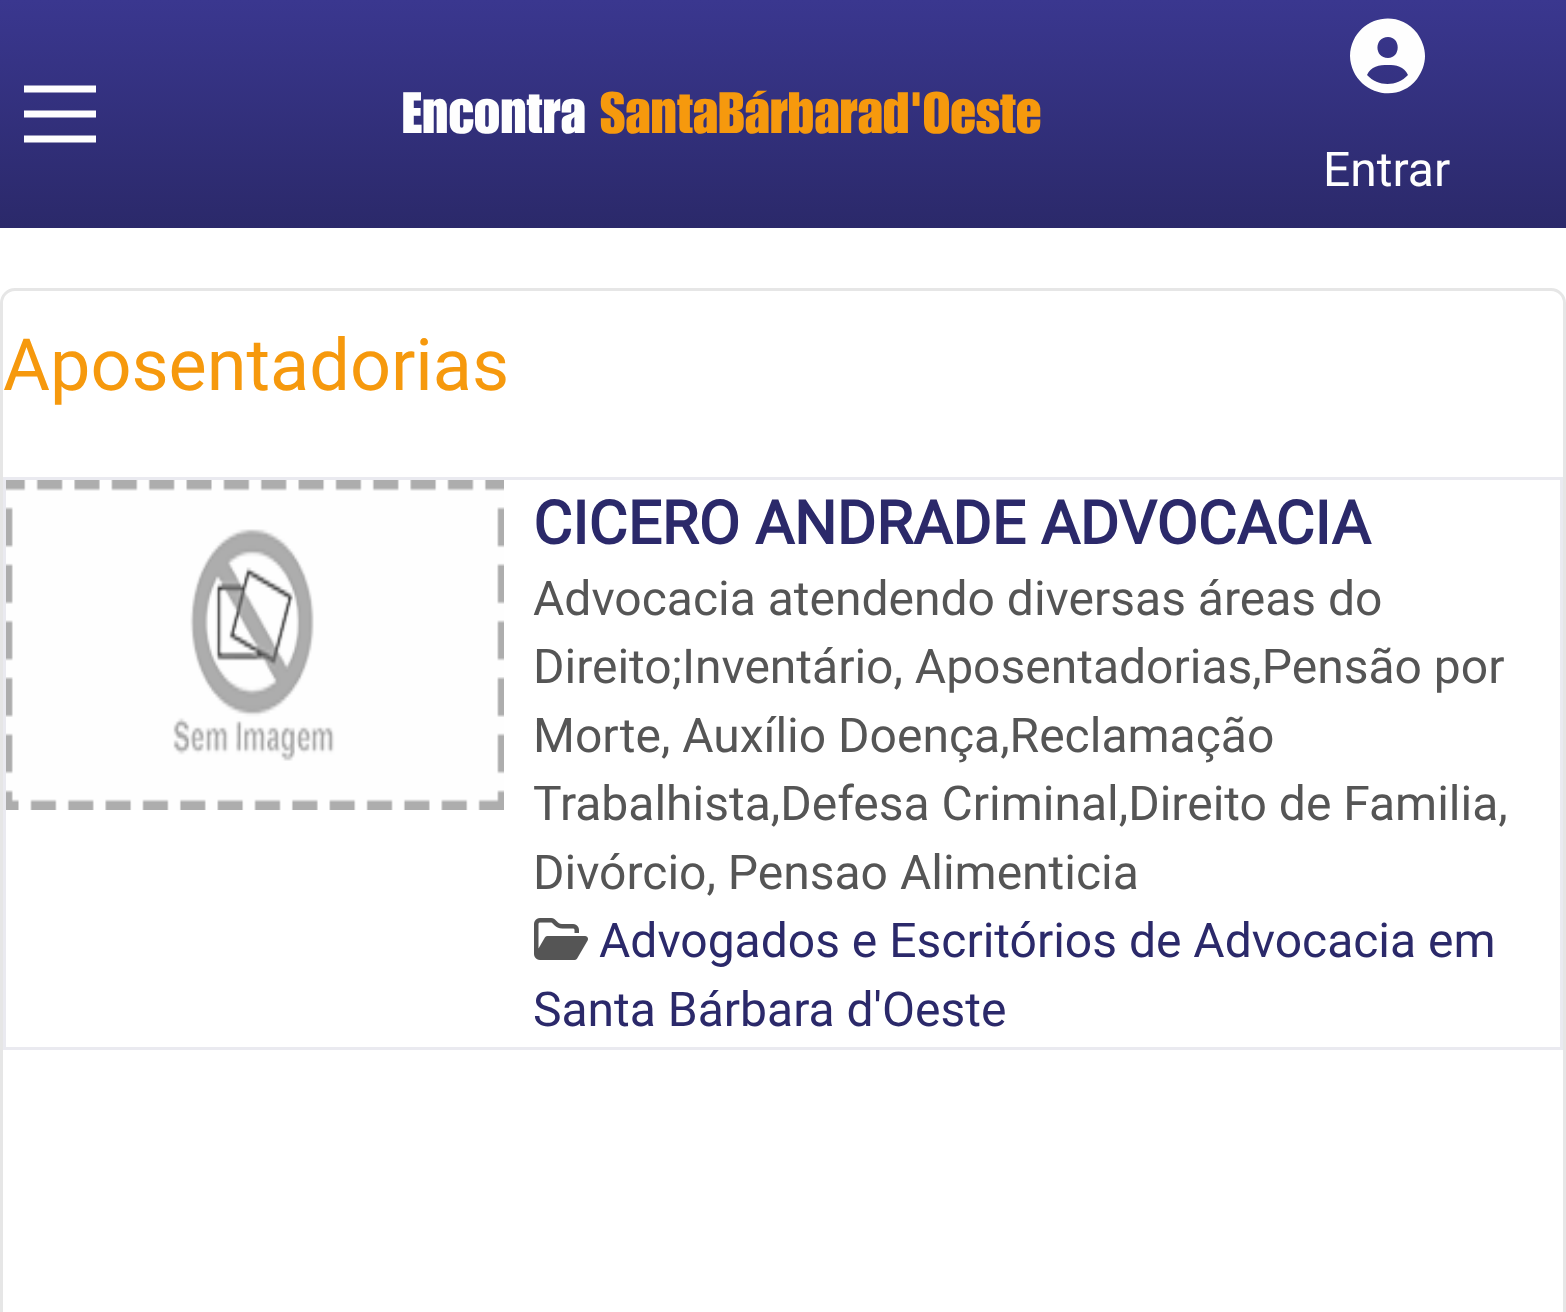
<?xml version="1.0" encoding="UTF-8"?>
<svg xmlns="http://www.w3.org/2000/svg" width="1566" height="1312">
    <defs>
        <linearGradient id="g1" gradientUnits="userSpaceOnUse" x1="783" y1="0" x2="783" y2="228"><stop offset="0" stop-color="#3A378F"/><stop offset="1" stop-color="#2B296A"/></linearGradient>
    </defs>
    <rect width="100%" height="100%" fill="#FFFFFF"/>
    <rect x="0" y="0" width="1566" height="228" fill="url(#g1)"/>
    <path d="M 24 89 H 96" fill="none" stroke="#FEFEFE" stroke-width="7.2"/>
    <path d="M 24 114 H 96" fill="none" stroke="#FEFEFE" stroke-width="7.2"/>
    <path d="M 24 139 H 96" fill="none" stroke="#FEFEFE" stroke-width="7.2"/>
    <text x="402" y="133" font-family="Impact" font-size="57" font-weight="500" fill="#FEFEFE">Encontra</text>
    <text x="600" y="133" font-family="Impact" font-size="57" font-weight="500" fill="#F6990D">SantaBárbarad'Oeste</text>
    <path d="M 1408 75 C 1404 66 1396 65 1388 65 C 1379 65 1371 66 1367 75 C 1378 87 1397 87 1408 75 Z M 1350 56 C 1351 20 1395 5 1417 33 C 1422 40 1425 48 1425 56 C 1425 64 1422 72 1417 79 C 1395 107 1351 91 1350 56 Z M 1388 58 C 1401 58 1401 37 1388 37 C 1374 37 1374 58 1388 58 Z" fill="#FEFEFE"/>
    <text x="1323" y="186" font-family="Roboto" font-size="48" fill="#FEFEFE">Entrar</text>
    <rect x="1.5" y="289.5" width="1563" height="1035" rx="13.5" fill="none" stroke="#E6E6E6" stroke-width="3"/>
    <text x="3" y="390" font-family="Roboto" font-size="72" fill="#F6990D">Aposentadorias</text>
    <rect x="4.5" y="478.5" width="1557" height="570" fill="none" stroke="#EAEAF0" stroke-width="3"/>
    <image x="6" y="480" width="498" height="330" href="img_01.png"/>
    <text x="533" y="544" font-family="Roboto" font-size="60" font-weight="700" fill="#2B296A">CICERO ANDRADE ADVOCACIA</text>
    <text font-family="Roboto" font-size="48" fill="#555555">
        <tspan x="533" y="615">Advocacia atendendo diversas áreas do</tspan>
        <tspan x="533" y="683">Direito;Inventário, Aposentadorias,Pensão por</tspan>
        <tspan x="533" y="752">Morte, Auxílio Doença,Reclamação</tspan>
        <tspan x="533" y="820">Trabalhista,Defesa Criminal,Direito de Familia,</tspan>
        <tspan x="533" y="889">Divórcio, Pensao Alimenticia</tspan>
    </text>
    <image x="534" y="918" width="54" height="42" href="img_02.png"/>
    <text x="599" y="957" font-family="Roboto" font-size="48" fill="#2B296A">Advogados e Escritórios de Advocacia em</text>
    <text x="533" y="1026" font-family="Roboto" font-size="48" fill="#2B296A">Santa Bárbara d'Oeste</text>
</svg>
